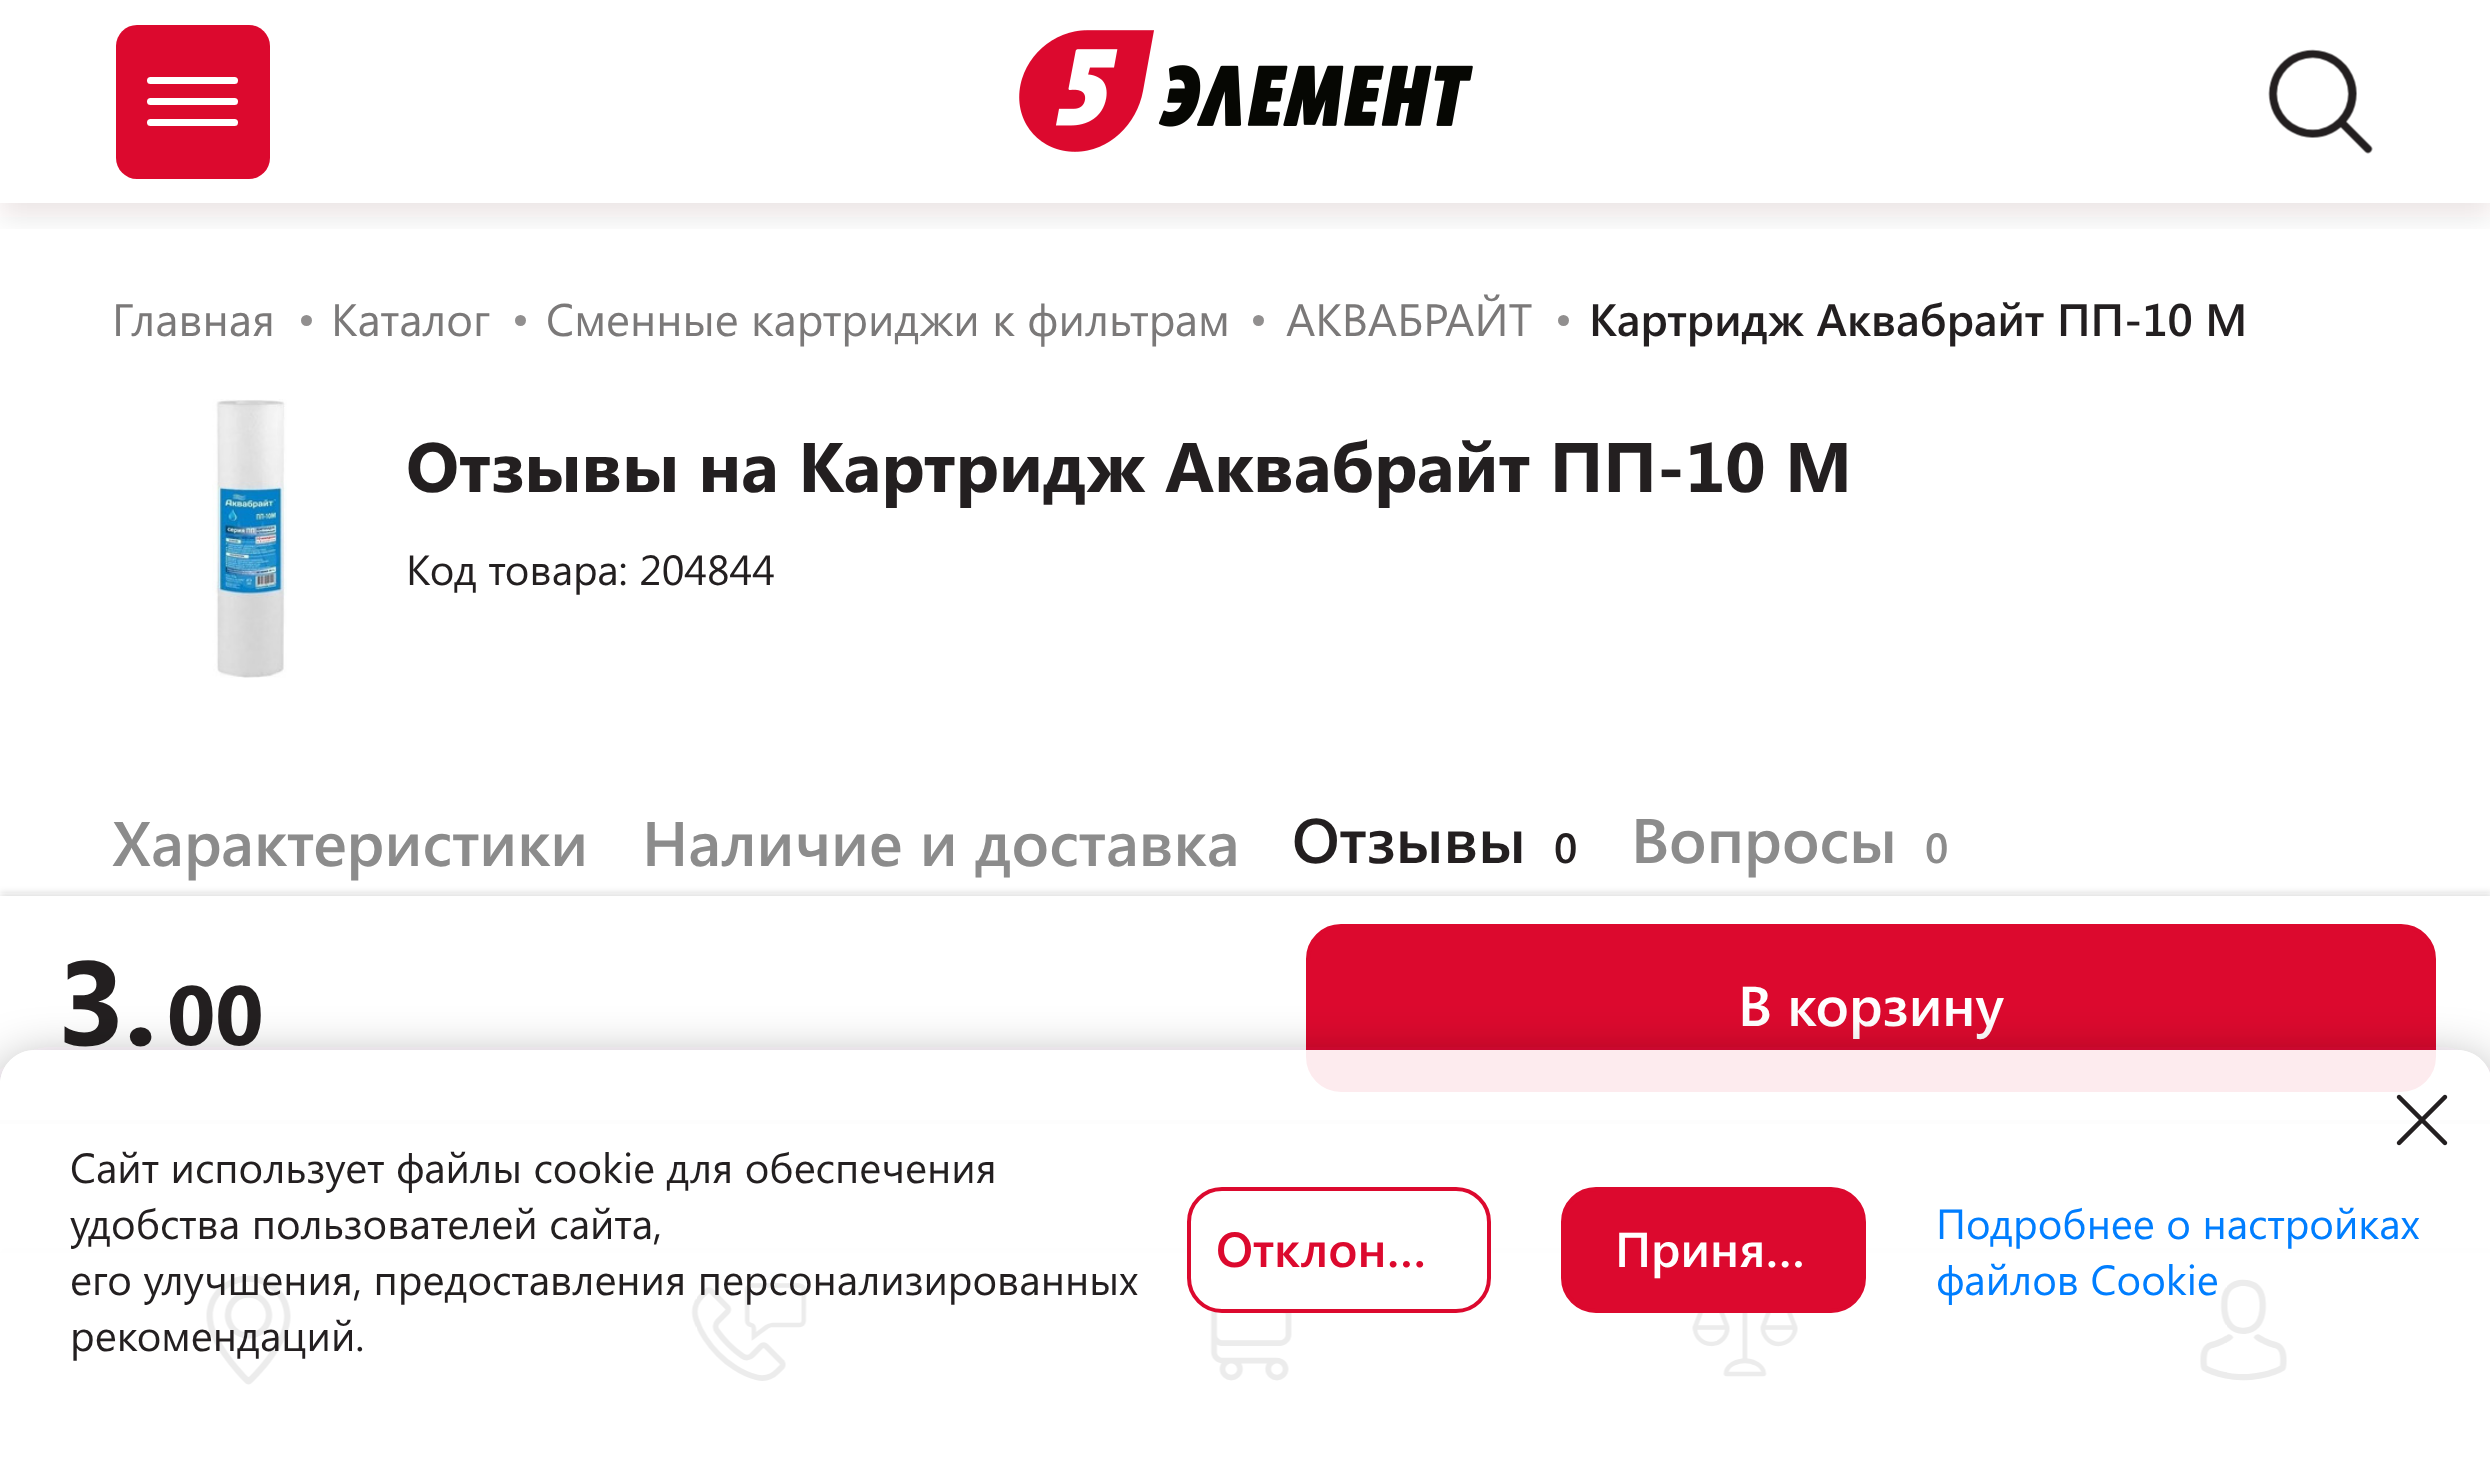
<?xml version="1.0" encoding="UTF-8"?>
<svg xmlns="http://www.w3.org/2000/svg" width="2490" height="1459">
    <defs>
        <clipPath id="clip1"><rect x="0" y="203" width="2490" height="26"/></clipPath>
        <filter id="blur1" x="-50%" y="-200%" width="200%" height="500%"><feGaussianBlur stdDeviation="14"/></filter>
        <filter id="blur2" x="-50%" y="-200%" width="200%" height="500%"><feGaussianBlur stdDeviation="3.5"/></filter>
        <clipPath id="clip2"><path d="M 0 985 H 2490 V 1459 H 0 Z M 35 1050 H 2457 C 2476.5 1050 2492 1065.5 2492 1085 V 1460 H 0 V 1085 C 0 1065.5 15.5 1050 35 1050 Z" clip-rule="evenodd"/></clipPath>
        <filter id="blur3" x="-50%" y="-200%" width="200%" height="500%"><feGaussianBlur stdDeviation="26"/></filter>
    </defs>
    <rect width="100%" height="100%" fill="#FFFFFF"/>
    <g clip-path="url(#clip1)">
        <rect x="0" y="14" width="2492" height="203" fill="#231F20" fill-opacity="0.1" filter="url(#blur1)"/>
    </g>
    <rect x="116" y="25" width="154" height="154" rx="21" fill="#DC092E"/>
    <rect x="147" y="98" width="91" height="7" rx="3.5" fill="#FFFFFF"/>
    <rect x="147" y="77" width="91" height="7" rx="3.5" fill="#FFFFFF"/>
    <rect x="147" y="119" width="91" height="7" rx="3.5" fill="#FFFFFF"/>
    <image x="1019" y="30" width="454" height="122" href="img_01.png"/>
    <image x="2268" y="49" width="105" height="105" href="img_02.png"/>
    <text x="112" y="336" font-family="Segoe UI" font-size="45.5" fill="#7B7979">Главная</text>
    <circle cx="306.5" cy="320.5" r="5.5" fill="#918F8F"/>
    <text x="331" y="336" font-family="Segoe UI" font-size="45.5" fill="#7B7979">Каталог</text>
    <circle cx="520.5" cy="320.5" r="5.5" fill="#918F8F"/>
    <text x="546" y="336" font-family="Segoe UI" font-size="45.5" fill="#7B7979">Сменные картриджи к фильтрам</text>
    <circle cx="1258.5" cy="320.5" r="5.5" fill="#918F8F"/>
    <text x="1286" y="336" font-family="Segoe UI" font-size="45.5" fill="#7B7979">АКВАБРАЙТ</text>
    <circle cx="1563.5" cy="320.5" r="5.5" fill="#918F8F"/>
    <text x="1589" y="336" font-family="Segoe UI" font-size="45.5" font-weight="600" fill="#231F20">Картридж Аквабрайт ПП-10 М</text>
    <image x="212" y="399" width="75" height="279" href="img_03.png"/>
    <text x="406" y="492" font-family="Segoe UI" font-size="70" font-weight="700" fill="#231F20">Отзывы на Картридж Аквабрайт ПП-10 М</text>
    <text x="406" y="585" font-family="Segoe UI" font-size="42" fill="#231F20">Код товара: 204844</text>
    <text x="112" y="866" font-family="Segoe UI" font-size="63" font-weight="600" fill="#8C8C8C">Характеристики</text>
    <text x="642" y="866" font-family="Segoe UI" font-size="63" font-weight="600" fill="#8C8C8C">Наличие и доставка</text>
    <text x="1292" y="863" font-family="Segoe UI" font-size="63" font-weight="600" fill="#231F20">Отзывы</text>
    <text x="1554" y="863" font-family="Segoe UI" font-size="42" font-weight="600" fill="#231F20">0</text>
    <text x="1631" y="863" font-family="Segoe UI" font-size="63" font-weight="600" fill="#8C8C8C">Вопросы</text>
    <text x="1925" y="863" font-family="Segoe UI" font-size="42" font-weight="600" fill="#8C8C8C">0</text>
    <rect x="0" y="893" width="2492" height="360" fill="#231F20" fill-opacity="0.15" filter="url(#blur2)"/>
    <rect x="0" y="896" width="2490" height="357" fill="#FFFFFF"/>
    <text x="56" y="1045" font-family="Segoe UI" font-size="119" font-weight="700" fill="#231F20">3.</text>
    <text x="167" y="1045" font-family="Segoe UI" font-size="84" font-weight="700" fill="#231F20">00</text>
    <rect x="1308" y="926" width="1126" height="164" rx="33" fill="#DC092E" stroke="#DC092E" stroke-width="4"/>
    <text x="1738" y="1026" font-family="Segoe UI" font-size="56" font-weight="600" fill="#FFFFFF">В корзину</text>
    <rect x="0" y="1120" width="2490" height="4" fill="#E5E5E5"/>
    <rect x="0" y="1250" width="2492" height="206" fill="#231F20" fill-opacity="0.15" filter="url(#blur2)"/>
    <rect x="0" y="1253" width="2490" height="206" fill="#FFFFFF"/>
    <image x="206" y="1275" width="85" height="110" href="img_04.png"/>
    <image x="691" y="1283" width="116" height="98" href="img_05.png"/>
    <image x="1210" y="1310" width="82" height="71" href="img_06.png"/>
    <image x="1692" y="1313" width="107" height="64" href="img_07.png"/>
    <image x="2199" y="1279" width="88" height="102" href="img_08.png"/>
    <g clip-path="url(#clip2)">
        <rect x="0" y="1064" width="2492" height="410" rx="35" fill="#231F20" fill-opacity="0.4" filter="url(#blur3)"/>
    </g>
    <path d="M 35 1050 H 2457 C 2476.5 1050 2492 1065.5 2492 1085 V 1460 H 0 V 1085 C 0 1065.5 15.5 1050 35 1050 Z" fill="#FFFFFF" fill-opacity="0.92"/>
    <image x="2396" y="1094" width="52" height="52" href="img_09.png"/>
    <text font-family="Segoe UI" font-size="42" fill="#231F20">
        <tspan x="70" y="1183">Cайт использует файлы cookie для обеспечения</tspan>
        <tspan x="70" y="1239">удобства пользователей сайта,</tspan>
        <tspan x="70" y="1295">его улучшения, предоставления персонализированных</tspan>
        <tspan x="70" y="1351">рекомендаций.</tspan>
    </text>
    <rect x="1189" y="1189" width="300" height="122" rx="33" fill="#FFFFFF" stroke="#DC092E" stroke-width="4"/>
    <text x="1216" y="1267" font-family="Segoe UI" font-size="49" font-weight="600" fill="#DC092E">Отклон…</text>
    <rect x="1563" y="1189" width="301" height="122" rx="33" fill="#DC092E" stroke="#DC092E" stroke-width="4"/>
    <text x="1615" y="1267" font-family="Segoe UI" font-size="49" font-weight="600" fill="#FFFFFF">Приня…</text>
    <text font-family="Segoe UI" font-size="42" fill="#007EFF">
        <tspan x="1936" y="1239">Подробнее о настройках</tspan>
        <tspan x="1936" y="1295">файлов Cookie</tspan>
    </text>
</svg>
